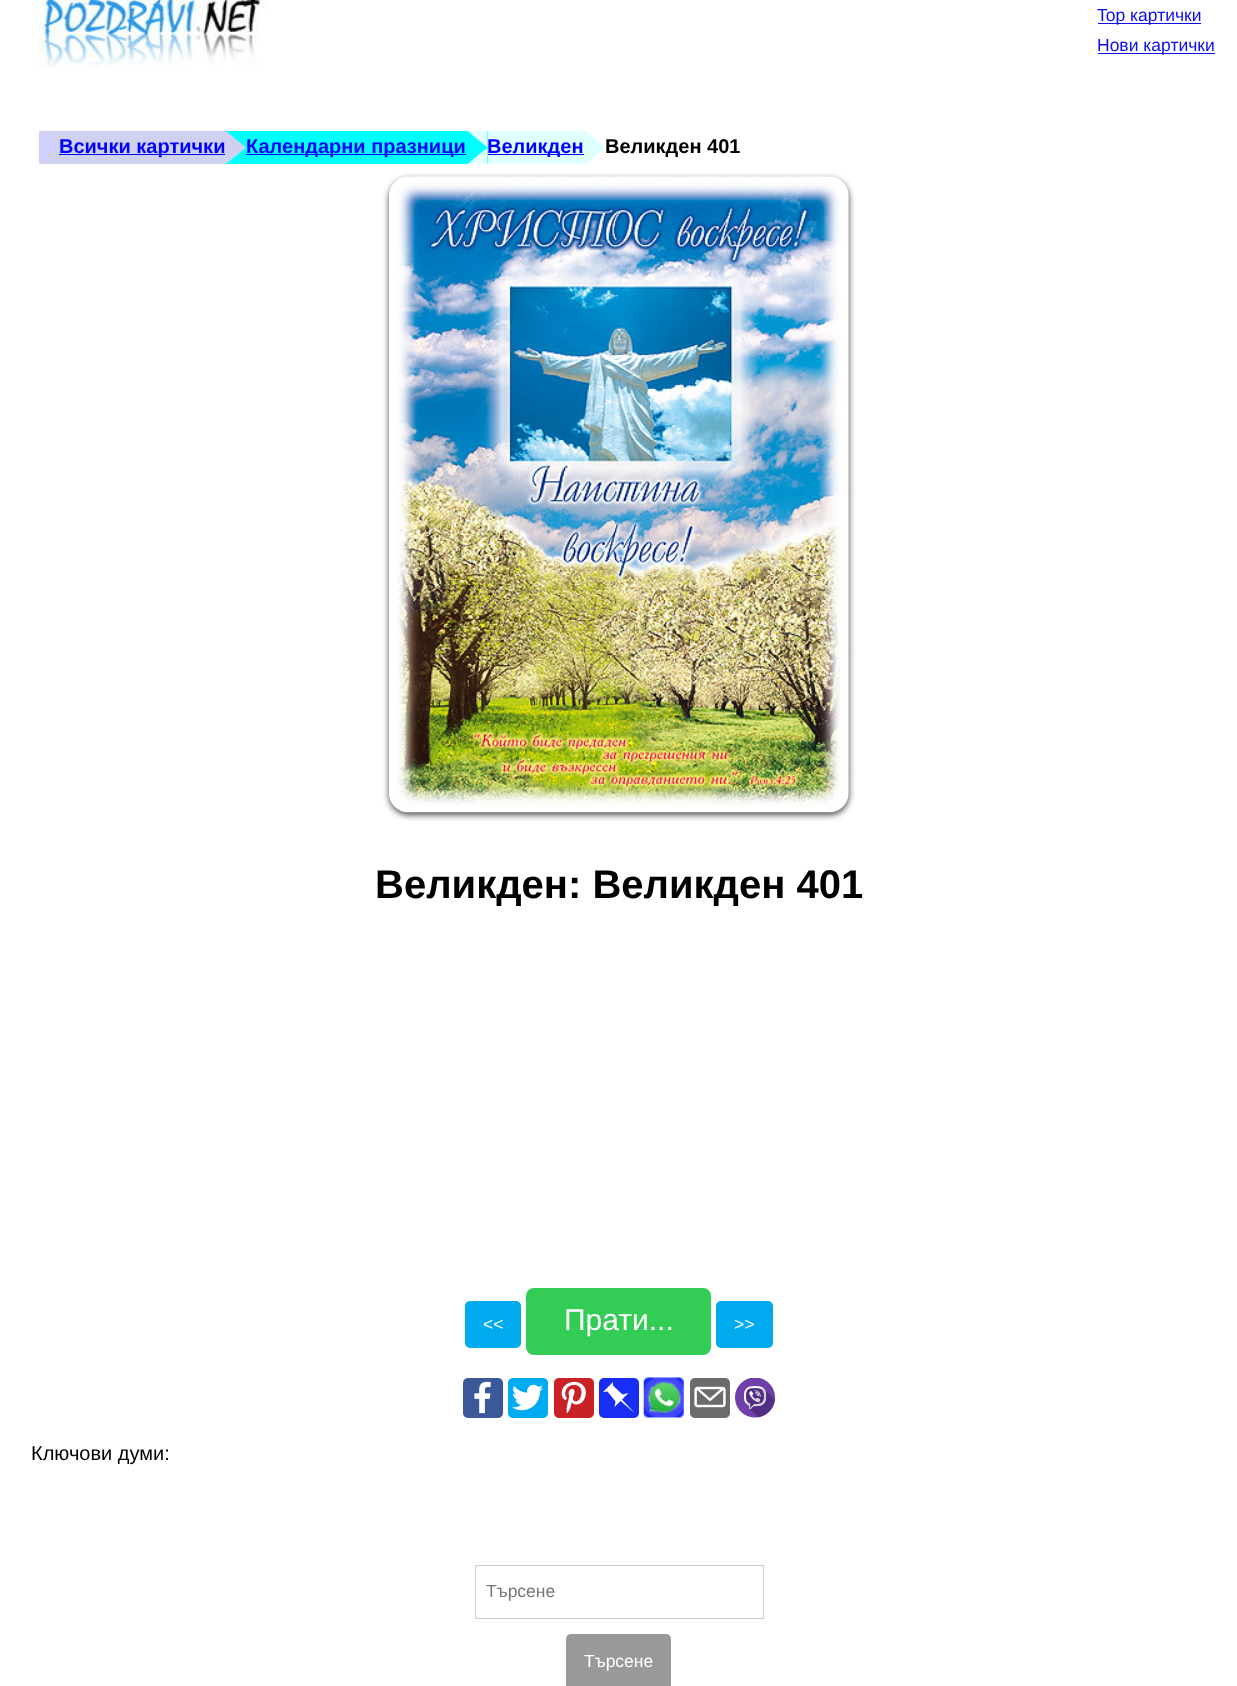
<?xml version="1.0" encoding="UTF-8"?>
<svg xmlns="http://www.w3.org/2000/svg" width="1237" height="1686">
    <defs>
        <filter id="blur1" x="-50%" y="-200%" width="200%" height="500%"><feGaussianBlur stdDeviation="3"/></filter>
    </defs>
    <rect width="100%" height="100%" fill="#FFFFFF"/>
    <image x="38" y="0" width="229" height="71" href="img_01.png"/>
    <rect x="1098" y="23" width="103" height="1" fill="#0D0DEF"/>
    <text x="1097" y="21" font-family="Liberation Sans" font-size="17.5" fill="#0D0DEF">Top картички</text>
    <rect x="1098" y="53" width="117" height="1" fill="#0D0DEF"/>
    <text x="1097" y="51" font-family="Liberation Sans" font-size="17.5" fill="#0D0DEF">Нови картички</text>
    <rect x="59" y="131" width="187" height="33" fill="#D0D0F0"/>
    <path d="M 39 131 H 59 V 147.5 Z" fill="#D0D0F0"/>
    <path d="M 59 164 H 39 L 59 147.5 Z" fill="#D0D0F0"/>
    <path d="M 39 164 V 131 L 59 147.5 Z" fill="#D0D0FF"/>
    <rect x="59" y="154" width="166" height="1" fill="#0000FF"/>
    <text x="59" y="153" font-family="Liberation Sans" font-size="20" font-weight="700" fill="#0000FF">Всички картички</text>
    <rect x="246" y="131" width="242" height="33" fill="#00FFFF"/>
    <path d="M 226 131 H 246 V 147.5 Z" fill="#00FFFF"/>
    <path d="M 246 164 H 226 L 246 147.5 Z" fill="#00FFFF"/>
    <rect x="246" y="154" width="220" height="1" fill="#0000FF"/>
    <text x="246" y="153" font-family="Liberation Sans" font-size="20" font-weight="700" fill="#0000FF">Календарни празници</text>
    <rect x="488" y="131" width="117" height="33" fill="#E0FFFF"/>
    <path d="M 467.5 131 H 487.5 V 147.5 Z" fill="#E0FFFF"/>
    <path d="M 487.5 164 H 467.5 L 487.5 147.5 Z" fill="#E0FFFF"/>
    <rect x="488" y="154" width="96" height="1" fill="#0000FF"/>
    <text x="487" y="153" font-family="Liberation Sans" font-size="20" font-weight="700" fill="#0000FF">Великден</text>
    <path d="M 586 131 H 605 V 147.5 Z" fill="#FFFFFF"/>
    <path d="M 605 164 H 586 L 605 147.5 Z" fill="#FFFFFF"/>
    <path d="M 586 164 V 131 L 605 147.5 Z" fill="#E0FFFF"/>
    <text x="605" y="153" font-family="Liberation Sans" font-size="20" font-weight="700" fill="#000000">Великден 401</text>
    <rect x="389" y="179" width="460" height="636" rx="20" fill="#000000" fill-opacity="0.7" filter="url(#blur1)"/>
    <image x="388" y="176" width="461" height="637" href="img_02.png"/>
    <text x="375" y="898" font-family="Liberation Sans" font-size="40" font-weight="700" fill="#000000">Великден: Великден 401</text>
    <rect x="465" y="1301" width="56" height="47" rx="5" fill="#00AAEE"/>
    <text x="483" y="1330" font-family="Liberation Sans" font-size="17.5" fill="#FFFFFF">&lt;&lt;</text>
    <rect x="526" y="1288" width="185" height="67" rx="8" fill="#33CC55"/>
    <text x="564" y="1330" font-family="Liberation Sans" font-size="30" fill="#FFFFFF">Прати...</text>
    <rect x="716" y="1301" width="57" height="47" rx="5" fill="#00AAEE"/>
    <text x="734" y="1330" font-family="Liberation Sans" font-size="17.5" fill="#FFFFFF">&gt;&gt;</text>
    <image x="463" y="1378" width="40" height="40" href="img_03.png"/>
    <image x="508" y="1378" width="40" height="40" href="img_04.png"/>
    <image x="554" y="1378" width="40" height="40" href="img_05.png"/>
    <rect x="599" y="1378" width="40" height="40" rx="5" fill="#182EF5"/>
    <image x="643" y="1377" width="41" height="41" href="img_06.png"/>
    <image x="690" y="1378" width="40" height="40" href="img_07.png"/>
    <image x="735" y="1378" width="40" height="40" href="img_08.png"/>
    <path d="M 613 1382 L 603 1392 L 607.5 1391.5 L 615.5 1401.5 L 614.5 1407 L 620.5 1401 L 634.5 1413 L 622 1399.5 L 628.5 1393 L 622.5 1394.5 L 613 1385.5" fill="#FFFFFF"/>
    <text x="31" y="1460" font-family="Liberation Sans" font-size="20" fill="#000000">Ключови думи:</text>
    <rect x="475.5" y="1565.5" width="288" height="53" fill="none" stroke="#CCCCCC"/>
    <text x="486" y="1597" font-family="Liberation Sans" font-size="17.5" fill="#757575">Търсене</text>
    <rect x="566" y="1634" width="105" height="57" rx="5" fill="#999999"/>
    <text x="584" y="1667" font-family="Liberation Sans" font-size="17.5" fill="#FFFFFF">Търсене</text>
</svg>
